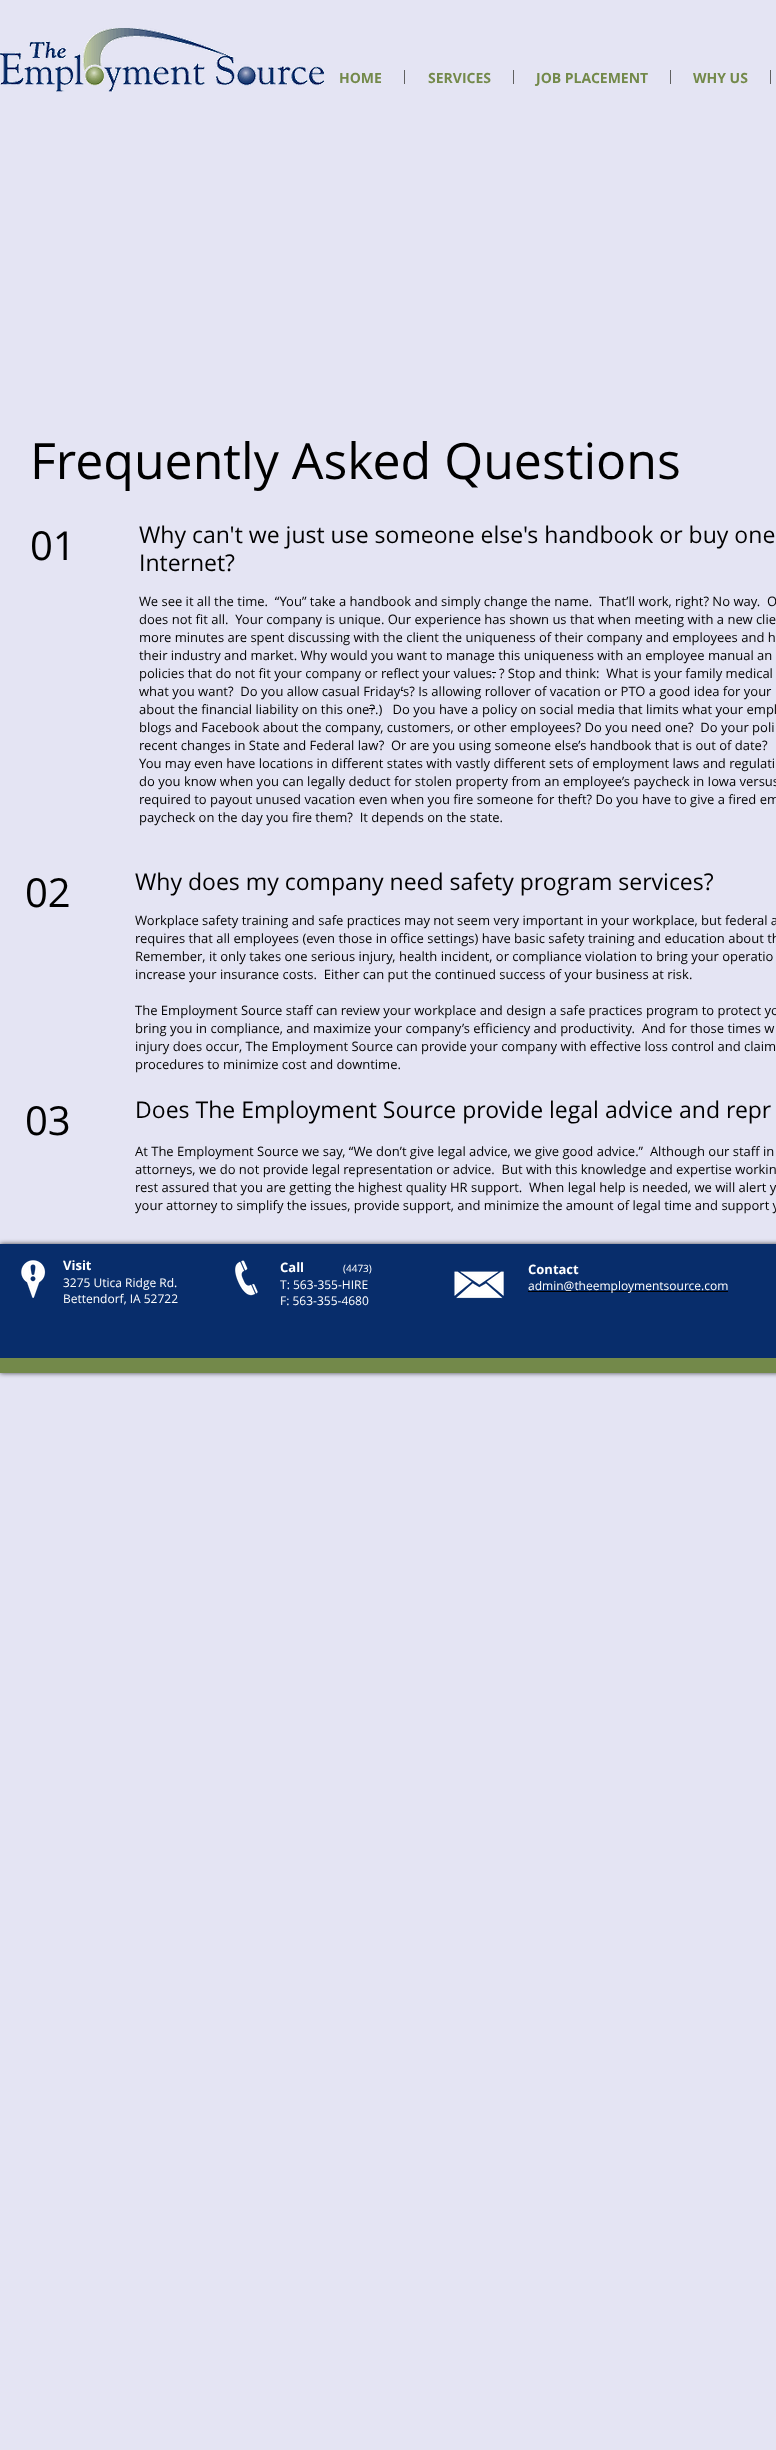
<?xml version="1.0" encoding="UTF-8"?>
<svg xmlns="http://www.w3.org/2000/svg" width="776" height="2450">
    <defs>
        <filter id="blur1" x="-50%" y="-200%" width="200%" height="500%"><feGaussianBlur stdDeviation="2.5"/></filter>
    </defs>
    <rect width="100%" height="100%" fill="#E4E4F3"/>
    <image x="0" y="28" width="324" height="64" href="img_01.png"/>
    <text x="339" y="83" font-family="Open Sans" font-size="14" font-weight="700" fill="#73894A">HOME</text>
    <rect x="404" y="70" width="1" height="14" fill="#606060"/>
    <text x="428" y="83" font-family="Open Sans" font-size="14" font-weight="700" fill="#73894A">SERVICES</text>
    <rect x="513" y="70" width="1" height="14" fill="#606060"/>
    <text x="536" y="83" font-family="Open Sans" font-size="14" font-weight="700" fill="#73894A">JOB PLACEMENT</text>
    <rect x="670" y="70" width="1" height="14" fill="#606060"/>
    <text x="693" y="83" font-family="Open Sans" font-size="14" font-weight="700" fill="#73894A">WHY US</text>
    <rect x="770" y="70" width="1" height="14" fill="#606060"/>
    <text x="30" y="479" font-family="Open Sans" font-size="50" fill="#000000">Frequently Asked Questions</text>
    <text x="30" y="560" font-family="Open Sans" font-size="40" fill="#000000">01</text>
    <text font-family="Open Sans" font-size="23" fill="#000000">
        <tspan x="139" y="543">Why can't we just use someone else's handbook or buy one</tspan>
        <tspan x="139" y="571">Internet?</tspan>
    </text>
    <text font-family="Open Sans" font-size="13" fill="#000000" xml:space="preserve"><tspan x="139" y="606">We see it all the time.  “You” take a handbook and simply change the name.  That’ll work, right? No way.  O</tspan><tspan x="139" y="624">does not fit all.  Your company is unique. Our experience has shown us that when meeting with a new clie</tspan><tspan x="139" y="642">more minutes are spent discussing with the client the uniqueness of their company and employees and h</tspan><tspan x="139" y="660">their industry and market. Why would you want to manage this uniqueness with an employee manual an</tspan><tspan x="139" y="678">policies that do not fit your company or reflect your values. ? Stop and think:  What is your family medical</tspan></text>
    <rect x="492" y="672" width="4" height="1" fill="#000000"/>
    <text x="139" y="696" font-family="Open Sans" font-size="13" fill="#000000" xml:space="preserve">what you want?  Do you allow casual Friday’</text>
    <text x="403" y="696" font-family="Open Sans" font-size="13" fill="#000000">s? Is allowing rollover of vacation or PTO a good idea for your</text>
    <rect x="401" y="690" width="2" height="1" fill="#000000"/>
    <text x="139" y="714" font-family="Open Sans" font-size="13" fill="#000000" xml:space="preserve">about the financial liability on this one?.)   Do you have a policy on social media that limits what your empl</text>
    <rect x="369" y="708" width="6" height="1" fill="#000000"/>
    <text font-family="Open Sans" font-size="13" fill="#000000" xml:space="preserve"><tspan x="139" y="732">blogs and Facebook about the company, customers, or other employees? Do you need one?  Do your poli</tspan><tspan x="139" y="750">recent changes in State and Federal law?  Or are you using someone else’s handbook that is out of date?</tspan><tspan x="139" y="768">You may even have locations in different states with vastly different sets of employment laws and regulati</tspan><tspan x="139" y="786">do you know when you can legally deduct for stolen property from an employee’s paycheck in Iowa versus</tspan><tspan x="139" y="804">required to payout unused vacation even when you fire someone for theft? Do you have to give a fired em</tspan><tspan x="139" y="822">paycheck on the day you fire them?  It depends on the state.</tspan></text>
    <text x="25" y="907" font-family="Open Sans" font-size="40" fill="#000000">02</text>
    <text x="135" y="890" font-family="Open Sans" font-size="23" fill="#000000">Why does my company need safety program services?</text>
    <text font-family="Open Sans" font-size="13" fill="#000000" xml:space="preserve"><tspan x="135" y="925">Workplace safety training and safe practices may not seem very important in your workplace, but federal a</tspan><tspan x="135" y="943">requires that all employees (even those in office settings) have basic safety training and education about th</tspan><tspan x="135" y="961">Remember, it only takes one serious injury, health incident, or compliance violation to bring your operatio</tspan><tspan x="135" y="979">increase your insurance costs.  Either can put the continued success of your business at risk.</tspan></text>
    <text font-family="Open Sans" font-size="13" fill="#000000" xml:space="preserve"><tspan x="135" y="1015">The Employment Source staff can review your workplace and design a safe practices program to protect yo</tspan><tspan x="135" y="1033">bring you in compliance, and maximize your company’s efficiency and productivity.  And for those times w</tspan><tspan x="135" y="1051">injury does occur, The Employment Source can provide your company with effective loss control and claim</tspan><tspan x="135" y="1069">procedures to minimize cost and downtime.</tspan></text>
    <text x="25" y="1135" font-family="Open Sans" font-size="40" fill="#000000">03</text>
    <text x="135" y="1118" font-family="Open Sans" font-size="23" fill="#000000">Does The Employment Source provide legal advice and repr</text>
    <text font-family="Open Sans" font-size="13" fill="#000000" xml:space="preserve"><tspan x="135" y="1156">At The Employment Source we say, “We don’t give legal advice, we give good advice.”  Although our staff in</tspan><tspan x="135" y="1174">attorneys, we do not provide legal representation or advice.  But with this knowledge and expertise workin</tspan><tspan x="135" y="1192">rest assured that you are getting the highest quality HR support.  When legal help is needed, we will alert y</tspan><tspan x="135" y="1210">your attorney to simplify the issues, provide support, and minimize the amount of legal time and support y</tspan></text>
    <rect x="0" y="1244" width="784" height="129" fill="#000000" fill-opacity="0.7" filter="url(#blur1)"/>
    <rect x="0" y="1244" width="776" height="114" fill="#082D6B"/>
    <rect x="0" y="1358" width="776" height="15" fill="#73894A"/>
    <image x="21" y="1260" width="25" height="38" href="img_02.png"/>
    <text x="63" y="1270" font-family="Open Sans" font-size="13" font-weight="700" fill="#FFFFFF">Visit</text>
    <text font-family="Open Sans" font-size="12" fill="#FFFFFF">
        <tspan x="63" y="1287">3275 Utica Ridge Rd.</tspan>
        <tspan x="63" y="1303">Bettendorf, IA 52722</tspan>
    </text>
    <image x="235" y="1260" width="23" height="36" href="img_03.png"/>
    <text x="280" y="1272" font-family="Open Sans" font-size="13" font-weight="700" fill="#FFFFFF">Call</text>
    <text x="343" y="1272" font-family="Open Sans" font-size="10" fill="#FFFFFF">(4473)</text>
    <text font-family="Open Sans" font-size="12" fill="#FFFFFF">
        <tspan x="280" y="1289">T: 563-355-HIRE</tspan>
        <tspan x="280" y="1305">F: 563-355-4680</tspan>
    </text>
    <image x="454" y="1271" width="50" height="28" href="img_04.png"/>
    <text x="528" y="1274" font-family="Open Sans" font-size="13" font-weight="700" fill="#FFFFFF">Contact</text>
    <rect x="528" y="1291" width="200" height="1" fill="#000000"/>
    <text x="528" y="1290" font-family="Open Sans" font-size="12" fill="#FFFFFF">admin@theemploymentsource.com</text>
</svg>
